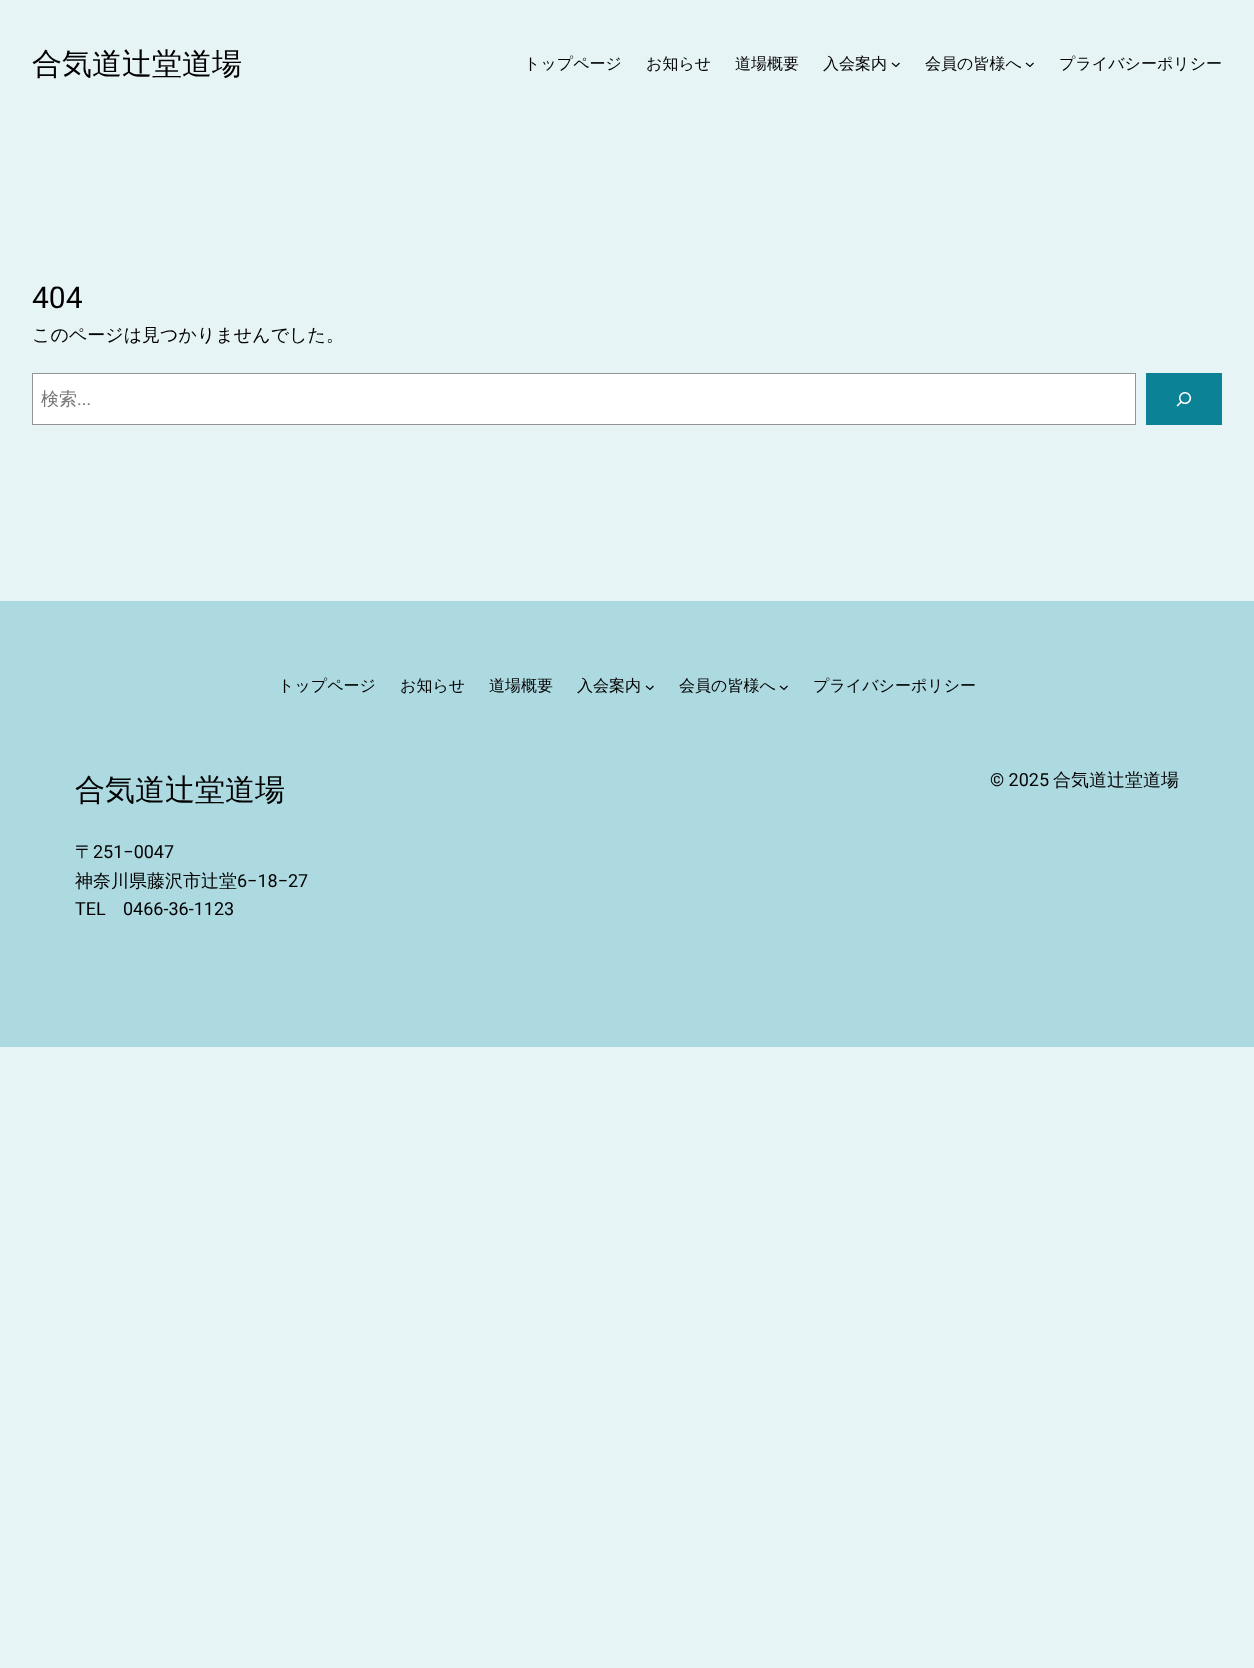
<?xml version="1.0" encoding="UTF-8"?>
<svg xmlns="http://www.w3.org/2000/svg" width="1254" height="1668">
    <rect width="100%" height="100%" fill="#E7F4F6"/>
    <text x="32" y="74" font-family="WenQuanYi Zen Hei" font-size="30" font-weight="500" fill="#000000">合気道辻堂道場</text>
    <text x="524" y="69" font-family="WenQuanYi Zen Hei" font-size="16" font-weight="500" fill="#000000">トップページ</text>
    <text x="646" y="69" font-family="WenQuanYi Zen Hei" font-size="16" font-weight="500" fill="#000000">お知らせ</text>
    <text x="735" y="69" font-family="WenQuanYi Zen Hei" font-size="16" font-weight="500" fill="#000000">道場概要</text>
    <text x="823" y="69" font-family="WenQuanYi Zen Hei" font-size="16" font-weight="500" fill="#000000">入会案内</text>
    <path d="M 892 63 L 896 66.5 L 899.5 63" fill="none" stroke="#000000" stroke-width="1.2"/>
    <text x="925" y="69" font-family="WenQuanYi Zen Hei" font-size="16" font-weight="500" fill="#000000">会員の皆様へ</text>
    <path d="M 1026 63 L 1030 66.5 L 1033.5 63" fill="none" stroke="#000000" stroke-width="1.2"/>
    <text x="1059" y="69" font-family="WenQuanYi Zen Hei" font-size="16" font-weight="500" fill="#000000">プライバシーポリシー</text>
    <text x="32" y="308" font-family="Roboto" font-size="30" fill="#000000">404</text>
    <text x="32" y="341" font-family="WenQuanYi Zen Hei" font-size="18" font-weight="500" fill="#000000">このページは見つかりませんでした。</text>
    <rect x="32.5" y="373.5" width="1103" height="51" fill="#FFFFFF" stroke="#949494"/>
    <text x="41" y="405" font-family="WenQuanYi Zen Hei" font-size="18" font-weight="500" fill="#757575">検索</text>
    <text x="77" y="405" font-family="Roboto" font-size="18" fill="#757575">...</text>
    <rect x="1146" y="373" width="76" height="52" fill="#0C8296"/>
    <image x="1176" y="392" width="16" height="15" href="img_01.png"/>
    <rect x="0" y="601" width="1254" height="446" fill="#ADD9E0"/>
    <text x="278" y="691" font-family="WenQuanYi Zen Hei" font-size="16" font-weight="500" fill="#000000">トップページ</text>
    <text x="400" y="691" font-family="WenQuanYi Zen Hei" font-size="16" font-weight="500" fill="#000000">お知らせ</text>
    <text x="489" y="691" font-family="WenQuanYi Zen Hei" font-size="16" font-weight="500" fill="#000000">道場概要</text>
    <text x="577" y="691" font-family="WenQuanYi Zen Hei" font-size="16" font-weight="500" fill="#000000">入会案内</text>
    <path d="M 646 686 L 650 689.5 L 653.5 686" fill="none" stroke="#000000" stroke-width="1.2"/>
    <text x="679" y="691" font-family="WenQuanYi Zen Hei" font-size="16" font-weight="500" fill="#000000">会員の皆様へ</text>
    <path d="M 780 686 L 784 689.5 L 787.5 686" fill="none" stroke="#000000" stroke-width="1.2"/>
    <text x="813" y="691" font-family="WenQuanYi Zen Hei" font-size="16" font-weight="500" fill="#000000">プライバシーポリシー</text>
    <text x="75" y="800" font-family="WenQuanYi Zen Hei" font-size="30" font-weight="500" fill="#000000">合気道辻堂道場</text>
    <text x="75" y="858" font-family="WenQuanYi Zen Hei" font-size="18" font-weight="500" fill="#000000">〒</text>
    <text x="93" y="858" font-family="Roboto" font-size="18" fill="#000000">251−0047</text>
    <text x="75" y="887" font-family="WenQuanYi Zen Hei" font-size="18" font-weight="500" fill="#000000">神奈川県藤沢市辻堂</text>
    <text x="237" y="887" font-family="Roboto" font-size="18" fill="#000000">6−18−27</text>
    <text x="75" y="915" font-family="Roboto" font-size="18" fill="#000000">TEL</text>
    <text x="123" y="915" font-family="Roboto" font-size="18" fill="#000000">0466-36-1123</text>
    <text x="990" y="786" font-family="Roboto" font-size="18" fill="#000000">© 2025</text>
    <text x="1053" y="786" font-family="WenQuanYi Zen Hei" font-size="18" font-weight="500" fill="#000000">合気道辻堂道場</text>
</svg>
